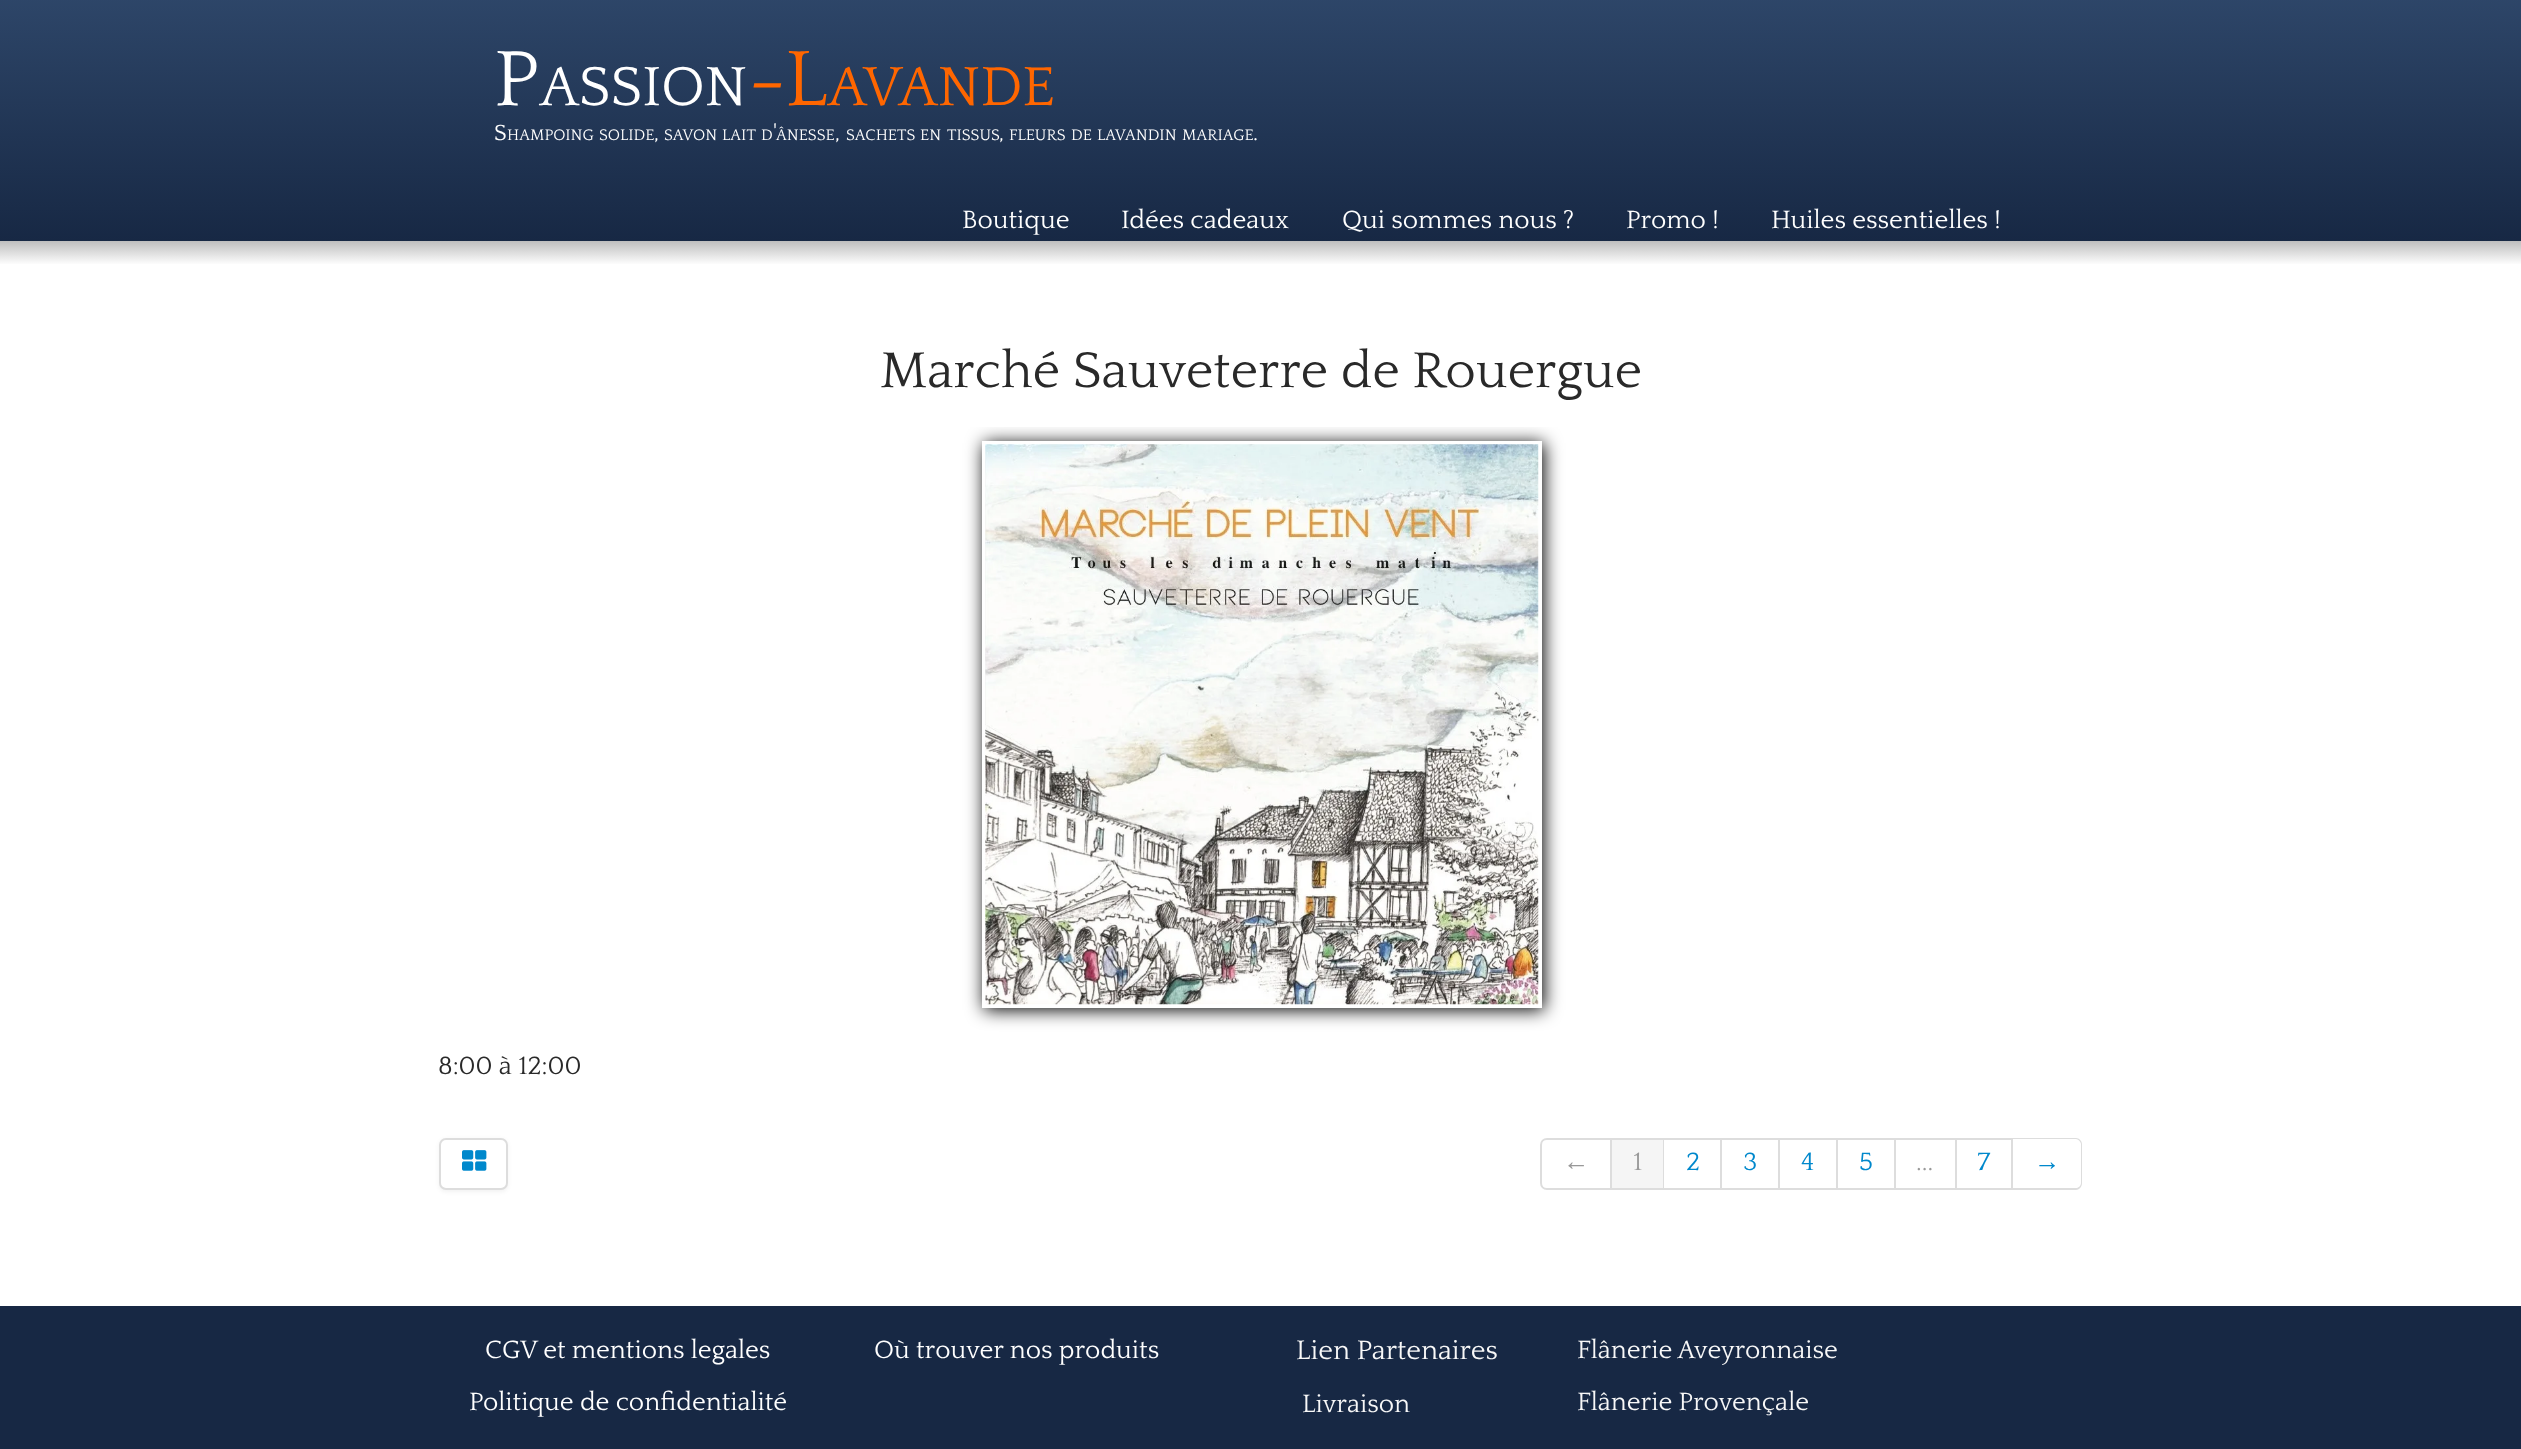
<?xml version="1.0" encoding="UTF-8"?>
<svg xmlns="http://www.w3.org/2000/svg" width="2521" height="1449">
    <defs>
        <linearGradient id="g1" gradientUnits="userSpaceOnUse" x1="1262" y1="-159" x2="1262" y2="312"><stop offset="0" stop-color="#3C5980"/><stop offset="0.85" stop-color="#172844"/><stop offset="0.85" stop-color="#BFBFBF"/><stop offset="0.9" stop-color="#FFFFFF"/></linearGradient>
        <clipPath id="clip1"><rect x="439" y="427" width="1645" height="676"/></clipPath>
        <filter id="blur1" x="-50%" y="-200%" width="200%" height="500%"><feGaussianBlur stdDeviation="9"/></filter>
        <filter id="blur2" x="-50%" y="-200%" width="200%" height="500%"><feGaussianBlur stdDeviation="2"/></filter>
    </defs>
    <rect width="100%" height="100%" fill="#FFFFFF"/>
    <rect x="0" y="0" width="2521" height="264" fill="url(#g1)"/>
    <text x="494" y="105" font-family="Quattrocento" font-size="82" fill="#FFFFFF">P</text>
    <text x="540" y="105" font-family="Quattrocento" font-size="57.5" fill="#FFFFFF">ASSION</text>
    <text x="748" y="105" font-family="Quattrocento" font-size="82" fill="#FF6600">-L</text>
    <text x="828" y="105" font-family="Quattrocento" font-size="57.5" fill="#FF6600">AVANDE</text>
    <text x="494" y="140" font-family="Quattrocento" font-size="23" fill="#FFFFFF">S</text>
    <text x="761" y="140" font-family="Quattrocento" font-size="16" fill="#FFFFFF">D ÂNESSE</text>
    <text x="773" y="140" font-family="Quattrocento" font-size="23" fill="#FFFFFF">'</text>
    <text x="507" y="140" font-family="Quattrocento" font-size="16" fill="#FFFFFF">HAMPOING</text>
    <text x="599" y="140" font-family="Quattrocento" font-size="16" fill="#FFFFFF">SOLIDE</text>
    <text x="654" y="140" font-family="Quattrocento" font-size="23" fill="#FFFFFF">,</text>
    <text x="664" y="140" font-family="Quattrocento" font-size="16" fill="#FFFFFF">SAVON</text>
    <text x="722" y="140" font-family="Quattrocento" font-size="16" fill="#FFFFFF">LAIT</text>
    <text x="835" y="140" font-family="Quattrocento" font-size="23" fill="#FFFFFF">,</text>
    <text x="846" y="140" font-family="Quattrocento" font-size="16" fill="#FFFFFF">SACHETS</text>
    <text x="920" y="140" font-family="Quattrocento" font-size="16" fill="#FFFFFF">EN</text>
    <text x="947" y="140" font-family="Quattrocento" font-size="16" fill="#FFFFFF">TISSUS</text>
    <text x="999" y="140" font-family="Quattrocento" font-size="23" fill="#FFFFFF">,</text>
    <text x="1009" y="140" font-family="Quattrocento" font-size="16" fill="#FFFFFF">FLEURS</text>
    <text x="1071" y="140" font-family="Quattrocento" font-size="16" fill="#FFFFFF">DE</text>
    <text x="1097" y="140" font-family="Quattrocento" font-size="16" fill="#FFFFFF">LAVANDIN</text>
    <text x="1182" y="140" font-family="Quattrocento" font-size="16" fill="#FFFFFF">MARIAGE</text>
    <text x="1253" y="140" font-family="Quattrocento" font-size="23" fill="#FFFFFF">.</text>
    <text x="962" y="228" font-family="Quattrocento" font-size="26.25" fill="#FFFFFF">Boutique</text>
    <text x="1121" y="228" font-family="Quattrocento" font-size="26.25" fill="#FFFFFF">Idées cadeaux</text>
    <text x="1342" y="228" font-family="Quattrocento" font-size="26.25" fill="#FFFFFF">Qui sommes nous ?</text>
    <text x="1626" y="228" font-family="Quattrocento" font-size="26.25" fill="#FFFFFF">Promo !</text>
    <text x="1771" y="228" font-family="Quattrocento" font-size="26.25" fill="#FFFFFF">Huiles essentielles !</text>
    <text x="880" y="387" font-family="Quattrocento" font-size="52.5" fill="#292929">Marché Sauveterre de Rouergue</text>
    <g clip-path="url(#clip1)">
        <rect x="984" y="443" width="560" height="567" fill="#000000" filter="url(#blur1)"/>
    </g>
    <rect x="982" y="441" width="560" height="567" fill="#FFFFFF"/>
    <image x="985" y="444" width="554" height="561" href="img_01.png"/>
    <text x="438" y="1074" font-family="Quattrocento" font-size="26.25" fill="#292929">8:00 à 12:00</text>
    <rect x="439" y="1139" width="69" height="53" rx="7" fill="#000000" fill-opacity="0.05" filter="url(#blur2)"/>
    <rect x="440" y="1139" width="67" height="50" rx="6" fill="#FFFFFF" stroke="#DDDDDD" stroke-width="2"/>
    <image x="462" y="1150" width="25" height="21" href="img_02.png"/>
    <path d="M 1547 1139 H 1611 V 1189 H 1547 C 1543.5 1189 1541 1186.5 1541 1183 V 1145 C 1541 1141.5 1543.5 1139 1547 1139 Z" fill="none" stroke="#DDDDDD" stroke-width="2"/>
    <text x="1563" y="1170" font-family="Liberation Serif" font-size="26.25" fill="#999999">←</text>
    <rect x="1612" y="1140" width="51" height="48" fill="#F5F5F5"/>
    <rect x="1612" y="1138" width="283" height="2" fill="#DDDDDD"/>
    <rect x="1663" y="1138" width="1" height="52" fill="#DDDDDD"/>
    <rect x="1612" y="1188" width="52" height="2" fill="#DDDDDD"/>
    <text x="1633" y="1170" font-family="Quattrocento" font-size="26.25" fill="#999999">1</text>
    <rect x="1720" y="1138" width="2" height="52" fill="#DDDDDD"/>
    <rect x="1664" y="1188" width="58" height="2" fill="#DDDDDD"/>
    <text x="1686" y="1170" font-family="Quattrocento" font-size="26.25" fill="#0088CC">2</text>
    <rect x="1778" y="1138" width="2" height="52" fill="#DDDDDD"/>
    <rect x="1722" y="1188" width="58" height="2" fill="#DDDDDD"/>
    <text x="1743" y="1170" font-family="Quattrocento" font-size="26.25" fill="#0088CC">3</text>
    <rect x="1836" y="1138" width="2" height="52" fill="#DDDDDD"/>
    <rect x="1780" y="1188" width="58" height="2" fill="#DDDDDD"/>
    <text x="1801" y="1170" font-family="Quattrocento" font-size="26.25" fill="#0088CC">4</text>
    <rect x="1894" y="1138" width="2" height="52" fill="#DDDDDD"/>
    <rect x="1838" y="1188" width="57" height="2" fill="#DDDDDD"/>
    <text x="1859" y="1170" font-family="Quattrocento" font-size="26.25" fill="#0088CC">5</text>
    <rect x="1895" y="1138" width="118" height="2" fill="#DDDDDD"/>
    <rect x="1955" y="1138" width="2" height="52" fill="#DDDDDD"/>
    <rect x="1895" y="1188" width="62" height="2" fill="#DDDDDD"/>
    <text x="1916" y="1170" font-family="Quattrocento" font-size="26.25" fill="#999999">...</text>
    <rect x="2011" y="1138" width="2" height="52" fill="#DDDDDD"/>
    <rect x="1957" y="1188" width="56" height="2" fill="#DDDDDD"/>
    <text x="1977" y="1170" font-family="Quattrocento" font-size="26.25" fill="#0088CC">7</text>
    <path d="M 2012 1138 H 2076 C 2079 1138 2082 1141 2082 1144 V 1183 C 2082 1187 2079 1190 2076 1190 H 2012 Z M 2012 1139 H 2076 C 2078 1139 2081 1142 2081 1144 V 1183 C 2081 1186 2078 1188 2076 1188 H 2012 Z" fill="#DDDDDD" fill-rule="evenodd"/>
    <text x="2034" y="1170" font-family="Liberation Serif" font-size="26.25" fill="#0088CC">→</text>
    <rect x="0" y="1306" width="2521" height="143" fill="#172844"/>
    <text x="485" y="1358" font-family="Quattrocento" font-size="26.25" fill="#FFFFFF">CGV et mentions legales</text>
    <text x="469" y="1410" font-family="Quattrocento" font-size="26.25" fill="#FFFFFF">Politique de confidentialité</text>
    <text x="874" y="1358" font-family="Quattrocento" font-size="26.25" fill="#FFFFFF">Où trouver nos produits</text>
    <text x="1296" y="1359" font-family="Quattrocento" font-size="28" fill="#F8F8F8">Lien Partenaires</text>
    <text x="1302" y="1412" font-family="Quattrocento" font-size="26.25" fill="#F8F8F8">Livraison</text>
    <text font-family="Quattrocento" font-size="26.25" fill="#F8F8F8">
        <tspan x="1577" y="1358">Flânerie Aveyronnaise</tspan>
        <tspan x="1577" y="1410">Flânerie Provençale</tspan>
    </text>
</svg>
